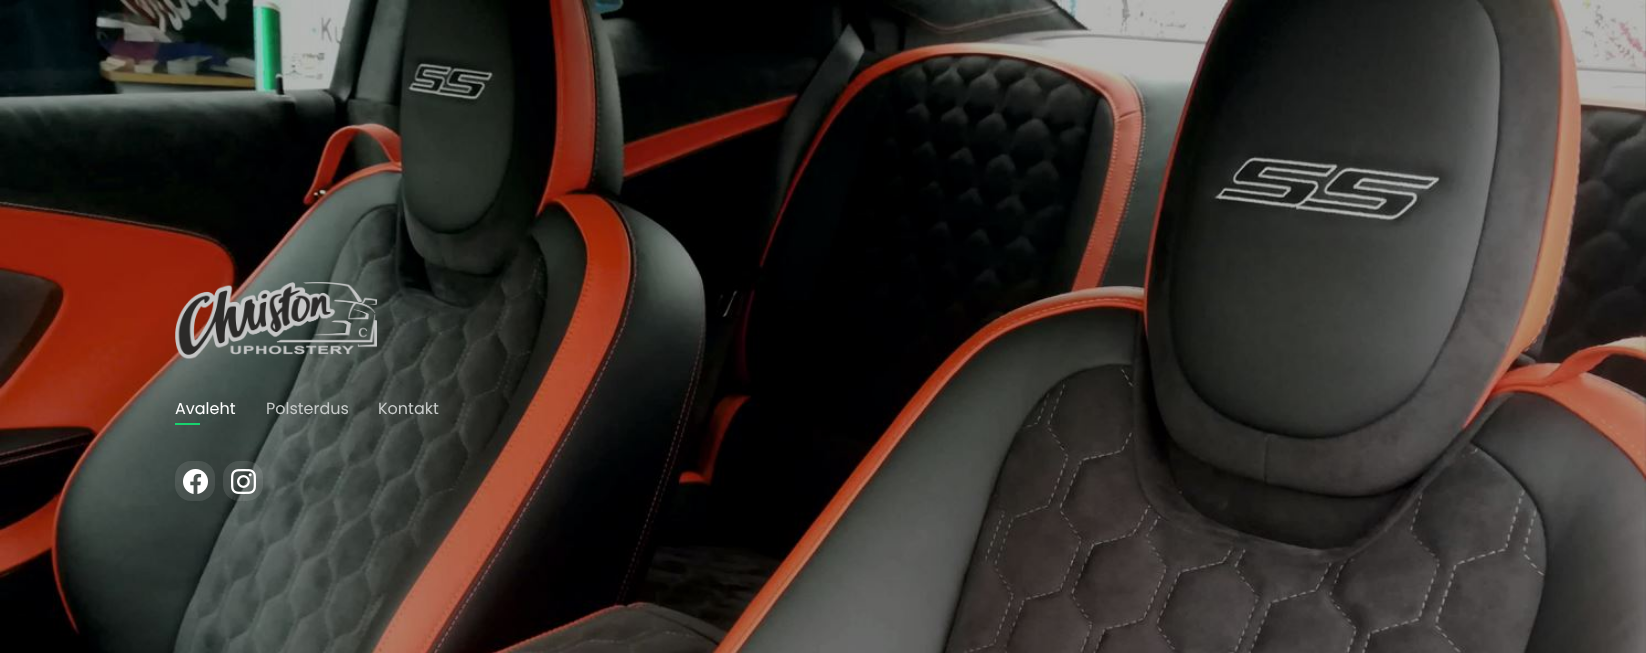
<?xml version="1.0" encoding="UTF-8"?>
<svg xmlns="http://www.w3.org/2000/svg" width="1646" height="653">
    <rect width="100%" height="100%" fill="#FFFFFF"/>
    <image x="0" y="0" width="1646" height="653" href="img_01.png"/>
    <image x="175" y="282" width="203" height="77" href="img_02.png"/>
    <text x="175" y="414" font-family="Poppins" font-size="16" fill="#FFFFFF">Avaleht</text>
    <rect x="175" y="423" width="25" height="2" fill="#18D26E"/>
    <text x="266" y="414" font-family="Poppins" font-size="16" fill="#C8CBCA">Polsterdus</text>
    <text x="378" y="414" font-family="Poppins" font-size="16" fill="#C8CBCA">Kontakt</text>
    <rect x="175" y="461" width="40" height="40" rx="16" fill="#FFFFFF" fill-opacity="0.1"/>
    <image x="183" y="469" width="25" height="25" href="img_03.png"/>
    <rect x="223" y="461" width="40" height="40" rx="16" fill="#FFFFFF" fill-opacity="0.1"/>
    <image x="231" y="469" width="25" height="25" href="img_04.png"/>
</svg>
